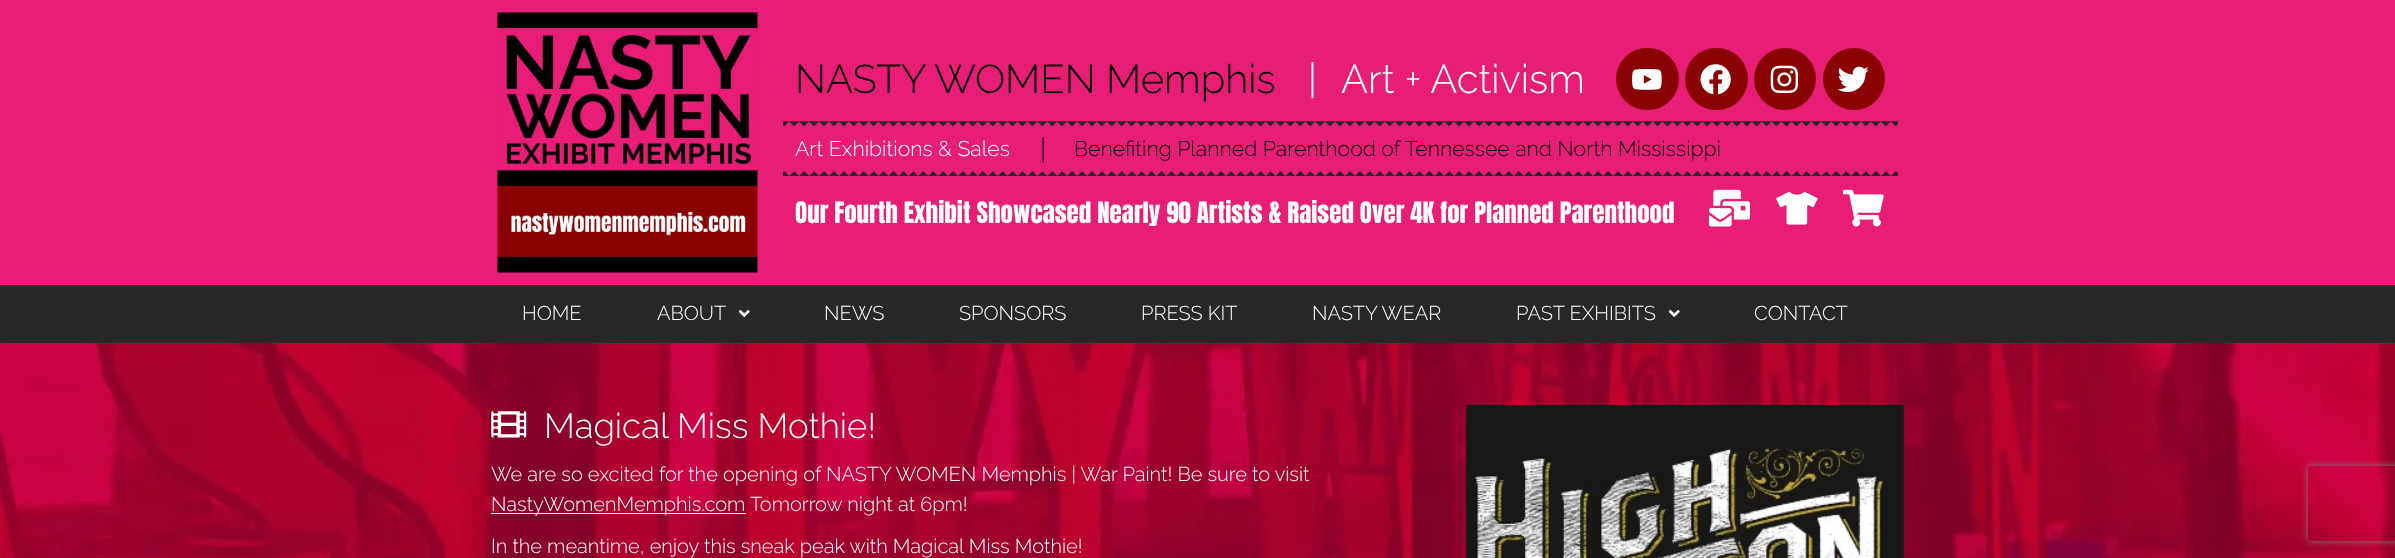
<?xml version="1.0" encoding="UTF-8"?>
<svg xmlns="http://www.w3.org/2000/svg" width="2395" height="558">
    <defs>
        <clipPath id="clip1"><path d="M 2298 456 H 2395 V 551 H 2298 Z M 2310.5 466 H 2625.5 C 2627 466 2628 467 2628 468.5 V 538.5 C 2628 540 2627 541 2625.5 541 H 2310.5 C 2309 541 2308 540 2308 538.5 V 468.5 C 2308 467 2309 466 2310.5 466 Z" clip-rule="evenodd"/></clipPath>
        <filter id="blur1" x="-50%" y="-200%" width="200%" height="500%"><feGaussianBlur stdDeviation="3"/></filter>
    </defs>
    <rect width="100%" height="100%" fill="#FFFFFF"/>
    <image x="0" y="343" width="2395" height="215" href="img_01.png"/>
    <rect x="0" y="0" width="2395" height="285" fill="#E71D76"/>
    <image x="497" y="12" width="261" height="261" href="img_02.png"/>
    <text x="795" y="93" font-family="Raleway" font-size="40" font-weight="300" fill="#000000">NASTY WOMEN Memphis</text>
    <text x="1308" y="93" font-family="Raleway" font-size="40" font-weight="300" fill="#FFFFFF">|</text>
    <text x="1341" y="93" font-family="Raleway" font-size="40" font-weight="300" fill="#FFFFFF">Art + Activism</text>
    <rect x="1616" y="48" width="63" height="62" rx="31" fill="#8A0303"/>
    <image x="1632" y="68" width="30" height="22" href="img_03.png"/>
    <rect x="1685" y="48" width="63" height="62" rx="31" fill="#8A0303"/>
    <image x="1700" y="64" width="31" height="31" href="img_04.png"/>
    <circle cx="1785" cy="79" r="31" fill="#8A0303"/>
    <image x="1770" y="65" width="29" height="29" href="img_05.png"/>
    <circle cx="1854" cy="79" r="31" fill="#8A0303"/>
    <image x="1838" y="66" width="31" height="27" href="img_06.png"/>
    <image x="783" y="121" width="1115" height="5" href="img_07.png"/>
    <text x="795" y="156" font-family="Raleway" font-size="21.25" font-weight="300" fill="#FFFFFF">Art Exhibitions &amp; Sales</text>
    <text x="1040" y="159" font-family="Raleway" font-size="28" font-weight="300" fill="#000000">|</text>
    <text x="1074" y="156" font-family="Raleway" font-size="21.25" font-weight="300" fill="#000000">Benefiting Planned Parenthood of Tennessee and North Mississippi</text>
    <image x="783" y="171" width="1115" height="5" href="img_08.png"/>
    <text x="795" y="223" font-family="Anton" font-size="25" fill="#FFFFFF">Our Fourth Exhibit Showcased Nearly 90 Artists &amp; Raised Over 4K for Planned Parenthood</text>
    <image x="1709" y="189" width="41" height="38" href="img_09.png"/>
    <image x="1776" y="191" width="42" height="34" href="img_10.png"/>
    <image x="1843" y="189" width="41" height="38" href="img_11.png"/>
    <rect x="0" y="285" width="2395" height="58" fill="#282828"/>
    <text x="522" y="320" font-family="Raleway" font-size="20" font-weight="300" fill="#FFFFFF">HOME</text>
    <text x="657" y="320" font-family="Raleway" font-size="20" font-weight="300" fill="#FFFFFF">ABOUT</text>
    <image x="738" y="310" width="12" height="7" href="img_12.png"/>
    <text x="824" y="320" font-family="Raleway" font-size="20" font-weight="300" fill="#FFFFFF">NEWS</text>
    <text x="959" y="320" font-family="Raleway" font-size="20" font-weight="300" fill="#FFFFFF">SPONSORS</text>
    <text x="1141" y="320" font-family="Raleway" font-size="20" font-weight="300" fill="#FFFFFF">PRESS KIT</text>
    <text x="1312" y="320" font-family="Raleway" font-size="20" font-weight="300" fill="#FFFFFF">NASTY WEAR</text>
    <text x="1516" y="320" font-family="Raleway" font-size="20" font-weight="300" fill="#FFFFFF">PAST EXHIBITS</text>
    <image x="1668" y="310" width="12" height="7" href="img_12.png"/>
    <text x="1754" y="320" font-family="Raleway" font-size="20" font-weight="300" fill="#FFFFFF">CONTACT</text>
    <image x="491" y="411" width="36" height="27" href="img_13.png"/>
    <text x="544" y="438" font-family="Raleway" font-size="35" font-weight="300" fill="#FFFFFF">Magical Miss Mothie!</text>
    <text x="491" y="481" font-family="Raleway" font-size="20" font-weight="300" fill="#FFFFFF">We are so excited for the opening of NASTY WOMEN Memphis | War Paint! Be sure to visit</text>
    <rect x="491" y="513" width="255" height="1" fill="#FFFFFF"/>
    <text x="491" y="511" font-family="Raleway" font-size="20" font-weight="300" fill="#FFFFFF">NastyWomenMemphis.com</text>
    <text x="750" y="511" font-family="Raleway" font-size="20" font-weight="300" fill="#FFFFFF">Tomorrow night at 6pm!</text>
    <text x="491" y="553" font-family="Raleway" font-size="20" font-weight="300" fill="#FFFFFF">In the meantime, enjoy this sneak peak with Magical Miss Mothie!</text>
    <image x="1466" y="405" width="438" height="153" href="img_14.png"/>
    <g clip-path="url(#clip1)">
        <rect x="2308" y="466" width="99" height="75" rx="2.5" fill="#808080" filter="url(#blur1)"/>
    </g>
</svg>
